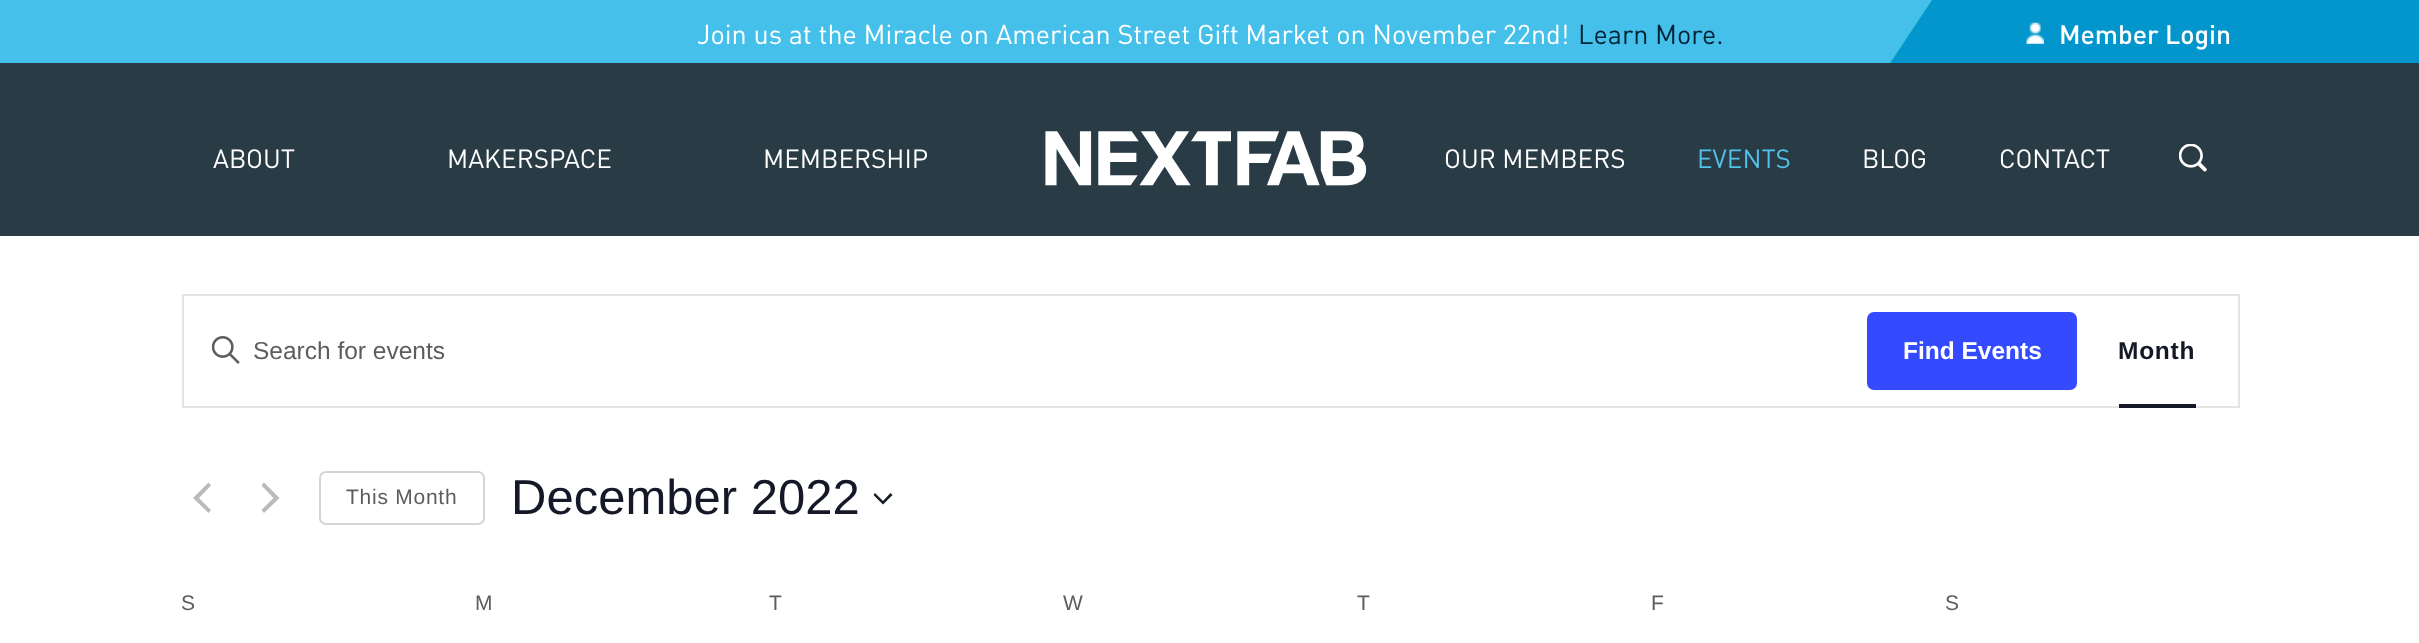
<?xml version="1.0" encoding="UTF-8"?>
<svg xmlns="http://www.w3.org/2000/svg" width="2419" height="643">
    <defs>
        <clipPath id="clip1"><rect x="0" y="0" width="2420" height="63"/></clipPath>
    </defs>
    <rect width="100%" height="100%" fill="#FFFFFF"/>
    <rect x="0" y="0" width="1932" height="63" fill="#45C0EA"/>
    <text x="697" y="44" font-family="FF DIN" font-size="26.95" fill="#FFFFFF">Join us at the Miracle on American Street Gift Market on November 22nd!</text>
    <text x="1578" y="44" font-family="FF DIN" font-size="26.95" fill="#002436">Learn More.</text>
    <rect x="1932" y="0" width="487" height="63" fill="#0396CC"/>
    <g clip-path="url(#clip1)">
        <path d="M 1932 175 H 1816 L 1932 0 Z" fill="#0396CC"/>
    </g>
    <image x="2026" y="22" width="18" height="22" href="img_01.png"/>
    <text x="2059" y="44" font-family="FF DIN" font-size="26.5" font-weight="500" fill="#FFFFFF">Member Login</text>
    <rect x="0" y="63" width="2419" height="173" fill="#293B45"/>
    <text x="213" y="168" font-family="FF DIN" font-size="26" fill="#FFFFFF">ABOUT</text>
    <text x="447" y="168" font-family="FF DIN" font-size="26" fill="#FFFFFF">MAKERSPACE</text>
    <text x="763" y="168" font-family="FF DIN" font-size="26" fill="#FFFFFF">MEMBERSHIP</text>
    <image x="1045" y="131" width="322" height="55" href="img_02.png"/>
    <text x="1444" y="168" font-family="FF DIN" font-size="26" fill="#FFFFFF">OUR MEMBERS</text>
    <text x="1697" y="168" font-family="FF DIN" font-size="26" fill="#54C1EA">EVENTS</text>
    <text x="1862" y="168" font-family="FF DIN" font-size="26" fill="#FFFFFF">BLOG</text>
    <text x="1999" y="168" font-family="FF DIN" font-size="26" fill="#FFFFFF">CONTACT</text>
    <image x="2179" y="144" width="28" height="28" href="img_03.png"/>
    <rect x="183" y="295" width="2056" height="112" fill="none" stroke="#E4E4E4" stroke-width="2"/>
    <image x="212" y="336" width="28" height="28" href="img_04.png"/>
    <text x="253" y="359" font-family="Liberation Sans" font-size="24.5" fill="#5D5D5D">Search for events</text>
    <rect x="1867" y="312" width="210" height="78" rx="7" fill="#334AFF"/>
    <text x="1903" y="359" font-family="Liberation Sans" font-size="24.5" font-weight="700" fill="#FFFFFF">Find Events</text>
    <text x="2118" y="359" font-family="Liberation Sans" font-size="24.5" font-weight="700" letter-spacing="0.75" fill="#141827">Month</text>
    <rect x="2119" y="404" width="77" height="4" fill="#141827"/>
    <path d="M 211 510 L 208.5 513 L 193 498 L 208.5 482.5 L 211 485.5 L 199 498 Z" fill="#BABABA"/>
    <path d="M 261.5 485.5 L 264 482.5 L 279.5 498 L 264 513 L 261.5 510 L 273.5 498 Z" fill="#BABABA"/>
    <rect x="320" y="472" width="164" height="52" rx="6" fill="none" stroke="#D5D5D5" stroke-width="2"/>
    <text x="346" y="504" font-family="Liberation Sans" font-size="21" letter-spacing="0.75" fill="#5D5D5D">This Month</text>
    <text x="511" y="514" font-family="Liberation Sans" font-size="49" fill="#141827">December 2022</text>
    <path d="M 875 493 L 883 501 L 890.5 493 L 892.5 495 L 883 504.5 L 873.5 495 Z" fill="#141827" fill-rule="evenodd"/>
    <text x="181" y="610" font-family="Liberation Sans" font-size="21" letter-spacing="0.75" fill="#5D5D5D">S</text>
    <text x="475" y="610" font-family="Liberation Sans" font-size="21" letter-spacing="0.75" fill="#5D5D5D">M</text>
    <text x="769" y="610" font-family="Liberation Sans" font-size="21" letter-spacing="0.75" fill="#5D5D5D">T</text>
    <text x="1063" y="610" font-family="Liberation Sans" font-size="21" letter-spacing="0.75" fill="#5D5D5D">W</text>
    <text x="1357" y="610" font-family="Liberation Sans" font-size="21" letter-spacing="0.75" fill="#5D5D5D">T</text>
    <text x="1651" y="610" font-family="Liberation Sans" font-size="21" letter-spacing="0.75" fill="#5D5D5D">F</text>
    <text x="1945" y="610" font-family="Liberation Sans" font-size="21" letter-spacing="0.75" fill="#5D5D5D">S</text>
</svg>
